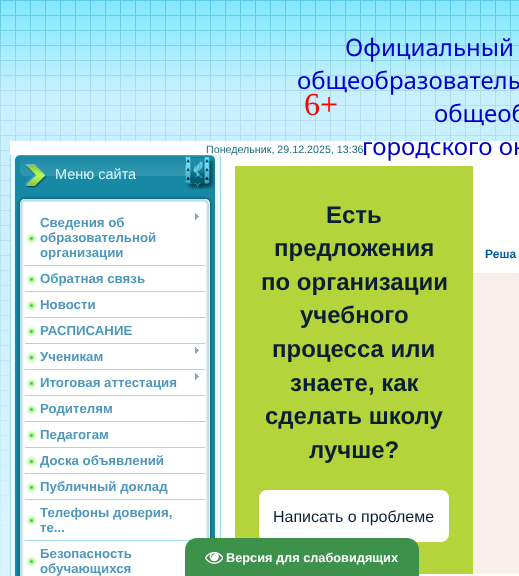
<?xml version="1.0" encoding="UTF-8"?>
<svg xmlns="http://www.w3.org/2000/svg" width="519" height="576">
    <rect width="100%" height="100%" fill="#FFFFFF"/>
    <image x="0" y="0" width="519" height="576" href="img_01.png"/>
    <rect x="10" y="141" width="509" height="14" fill="#FFFFFF"/>
    <text x="345" y="56" font-family="Noto Sans" font-size="24" fill="#0000CD">Официальный</text>
    <text x="297" y="89" font-family="Noto Sans" font-size="24" fill="#0000CD">общеобразователь</text>
    <text x="434" y="122" font-family="Noto Sans" font-size="24" fill="#0000CD">общеоб</text>
    <rect x="225" y="155" width="294" height="421" fill="#FFFFFF"/>
    <text x="362" y="155" font-family="Noto Sans" font-size="24" fill="#0000CD">городского ок</text>
    <text x="304" y="115" font-family="Liberation Serif" font-size="32" fill="#FF0000">6+</text>
    <image x="10" y="155" width="215" height="421" href="img_02.png"/>
    <image x="15" y="155" width="200" height="34" href="img_04.png"/>
    <text x="206" y="153" font-family="Liberation Sans" font-size="10.7" fill="#1F6C7F">Понедельник, 29.12.2025, 13:36</text>
    <image x="15" y="195" width="200" height="381" href="img_03.png"/>
    <rect x="15" y="189" width="200" height="6" fill="#1789A4"/>
    <text x="55" y="179" font-family="Liberation Sans" font-size="14.5" fill="#DCF6FF">Меню сайта</text>
    <image x="17" y="195" width="196" height="13" href="img_05.png"/>
    <image x="25" y="232" width="12" height="12" href="img_06.png"/>
    <rect x="25" y="265" width="180" height="1" fill="#A2D7EC"/>
    <text x="40" y="227" font-family="Liberation Sans" font-size="13.25" font-weight="700" fill="#4F98BC">Сведения об</text>
    <image x="195" y="213" width="4" height="7" href="img_07.png"/>
    <text font-family="Liberation Sans" font-size="13.25" font-weight="700" fill="#4F98BC">
        <tspan x="40" y="242">образовательной</tspan>
        <tspan x="40" y="257">организации</tspan>
    </text>
    <image x="25" y="273" width="12" height="12" href="img_06.png"/>
    <rect x="25" y="291" width="180" height="1" fill="#A2D7EC"/>
    <text x="40" y="283" font-family="Liberation Sans" font-size="13.25" font-weight="700" fill="#4F98BC">Обратная связь</text>
    <image x="25" y="299" width="12" height="12" href="img_06.png"/>
    <rect x="25" y="317" width="180" height="1" fill="#A2D7EC"/>
    <text x="40" y="309" font-family="Liberation Sans" font-size="13.25" font-weight="700" fill="#4F98BC">Новости</text>
    <image x="25" y="325" width="12" height="12" href="img_06.png"/>
    <rect x="25" y="343" width="180" height="1" fill="#A2D7EC"/>
    <text x="40" y="335" font-family="Liberation Sans" font-size="13.25" font-weight="700" fill="#4F98BC">РАСПИСАНИЕ</text>
    <image x="25" y="351" width="12" height="12" href="img_06.png"/>
    <rect x="25" y="369" width="180" height="1" fill="#A2D7EC"/>
    <text x="40" y="361" font-family="Liberation Sans" font-size="13.25" font-weight="700" fill="#4F98BC">Ученикам</text>
    <image x="195" y="347" width="4" height="7" href="img_07.png"/>
    <image x="25" y="377" width="12" height="12" href="img_06.png"/>
    <rect x="25" y="395" width="180" height="1" fill="#A2D7EC"/>
    <text x="40" y="387" font-family="Liberation Sans" font-size="13.25" font-weight="700" fill="#4F98BC">Итоговая аттестация</text>
    <image x="195" y="373" width="4" height="7" href="img_07.png"/>
    <image x="25" y="403" width="12" height="12" href="img_06.png"/>
    <rect x="25" y="421" width="180" height="1" fill="#A2D7EC"/>
    <text x="40" y="413" font-family="Liberation Sans" font-size="13.25" font-weight="700" fill="#4F98BC">Родителям</text>
    <image x="25" y="429" width="12" height="12" href="img_06.png"/>
    <rect x="25" y="447" width="180" height="1" fill="#A2D7EC"/>
    <text x="40" y="439" font-family="Liberation Sans" font-size="13.25" font-weight="700" fill="#4F98BC">Педагогам</text>
    <image x="25" y="455" width="12" height="12" href="img_06.png"/>
    <rect x="25" y="473" width="180" height="1" fill="#A2D7EC"/>
    <text x="40" y="465" font-family="Liberation Sans" font-size="13.25" font-weight="700" fill="#4F98BC">Доска объявлений</text>
    <image x="25" y="481" width="12" height="12" href="img_06.png"/>
    <rect x="25" y="499" width="180" height="1" fill="#A2D7EC"/>
    <text x="40" y="491" font-family="Liberation Sans" font-size="13.25" font-weight="700" fill="#4F98BC">Публичный доклад</text>
    <image x="25" y="514" width="12" height="12" href="img_06.png"/>
    <rect x="25" y="540" width="166" height="1" fill="#A2D7EC"/>
    <text font-family="Liberation Sans" font-size="13.25" font-weight="700" fill="#4F98BC">
        <tspan x="40" y="517">Телефоны доверия,</tspan>
        <tspan x="40" y="532">те...</tspan>
    </text>
    <image x="25" y="555" width="12" height="12" href="img_06.png"/>
    <text font-family="Liberation Sans" font-size="13.25" font-weight="700" fill="#4F98BC">
        <tspan x="40" y="558">Безопасность</tspan>
        <tspan x="40" y="573">обучающихся</tspan>
    </text>
    <rect x="235" y="166" width="238" height="408" fill="#B5D43C"/>
    <text x="326" y="223" font-family="Liberation Sans" font-size="24" font-weight="700" fill="#0B1F33">Есть</text>
    <text x="274" y="256" font-family="Liberation Sans" font-size="24" font-weight="700" fill="#0B1F33">предложения</text>
    <text x="261" y="290" font-family="Liberation Sans" font-size="24" font-weight="700" fill="#0B1F33">по организации</text>
    <text x="300" y="323" font-family="Liberation Sans" font-size="24" font-weight="700" fill="#0B1F33">учебного</text>
    <text x="272" y="357" font-family="Liberation Sans" font-size="24" font-weight="700" fill="#0B1F33">процесса или</text>
    <text x="290" y="391" font-family="Liberation Sans" font-size="24" font-weight="700" fill="#0B1F33">знаете, как</text>
    <text x="265" y="424" font-family="Liberation Sans" font-size="24" font-weight="700" fill="#0B1F33">сделать школу</text>
    <text x="309" y="458" font-family="Liberation Sans" font-size="24" font-weight="700" fill="#0B1F33">лучше?</text>
    <rect x="259" y="490" width="190" height="52" rx="8" fill="#FFFFFF"/>
    <text x="273" y="522" font-family="Liberation Sans" font-size="16" fill="#0B1F33">Написать о проблеме</text>
    <rect x="473" y="273" width="46" height="301" fill="#F8EFEC"/>
    <text x="485" y="258" font-family="Liberation Sans" font-size="12" font-weight="700" fill="#005CA9">Реша</text>
    <path d="M 197 538 H 407 C 413.5 538 419 543.5 419 550 V 576 H 185 V 550 C 185 543.5 190.5 538 197 538 Z" fill="#3D914B"/>
    <image x="205" y="551" width="18" height="13" href="img_08.png"/>
    <text x="226" y="562" font-family="Liberation Sans" font-size="12.75" font-weight="700" fill="#FFFFFF">Версия для слабовидящих</text>
</svg>
